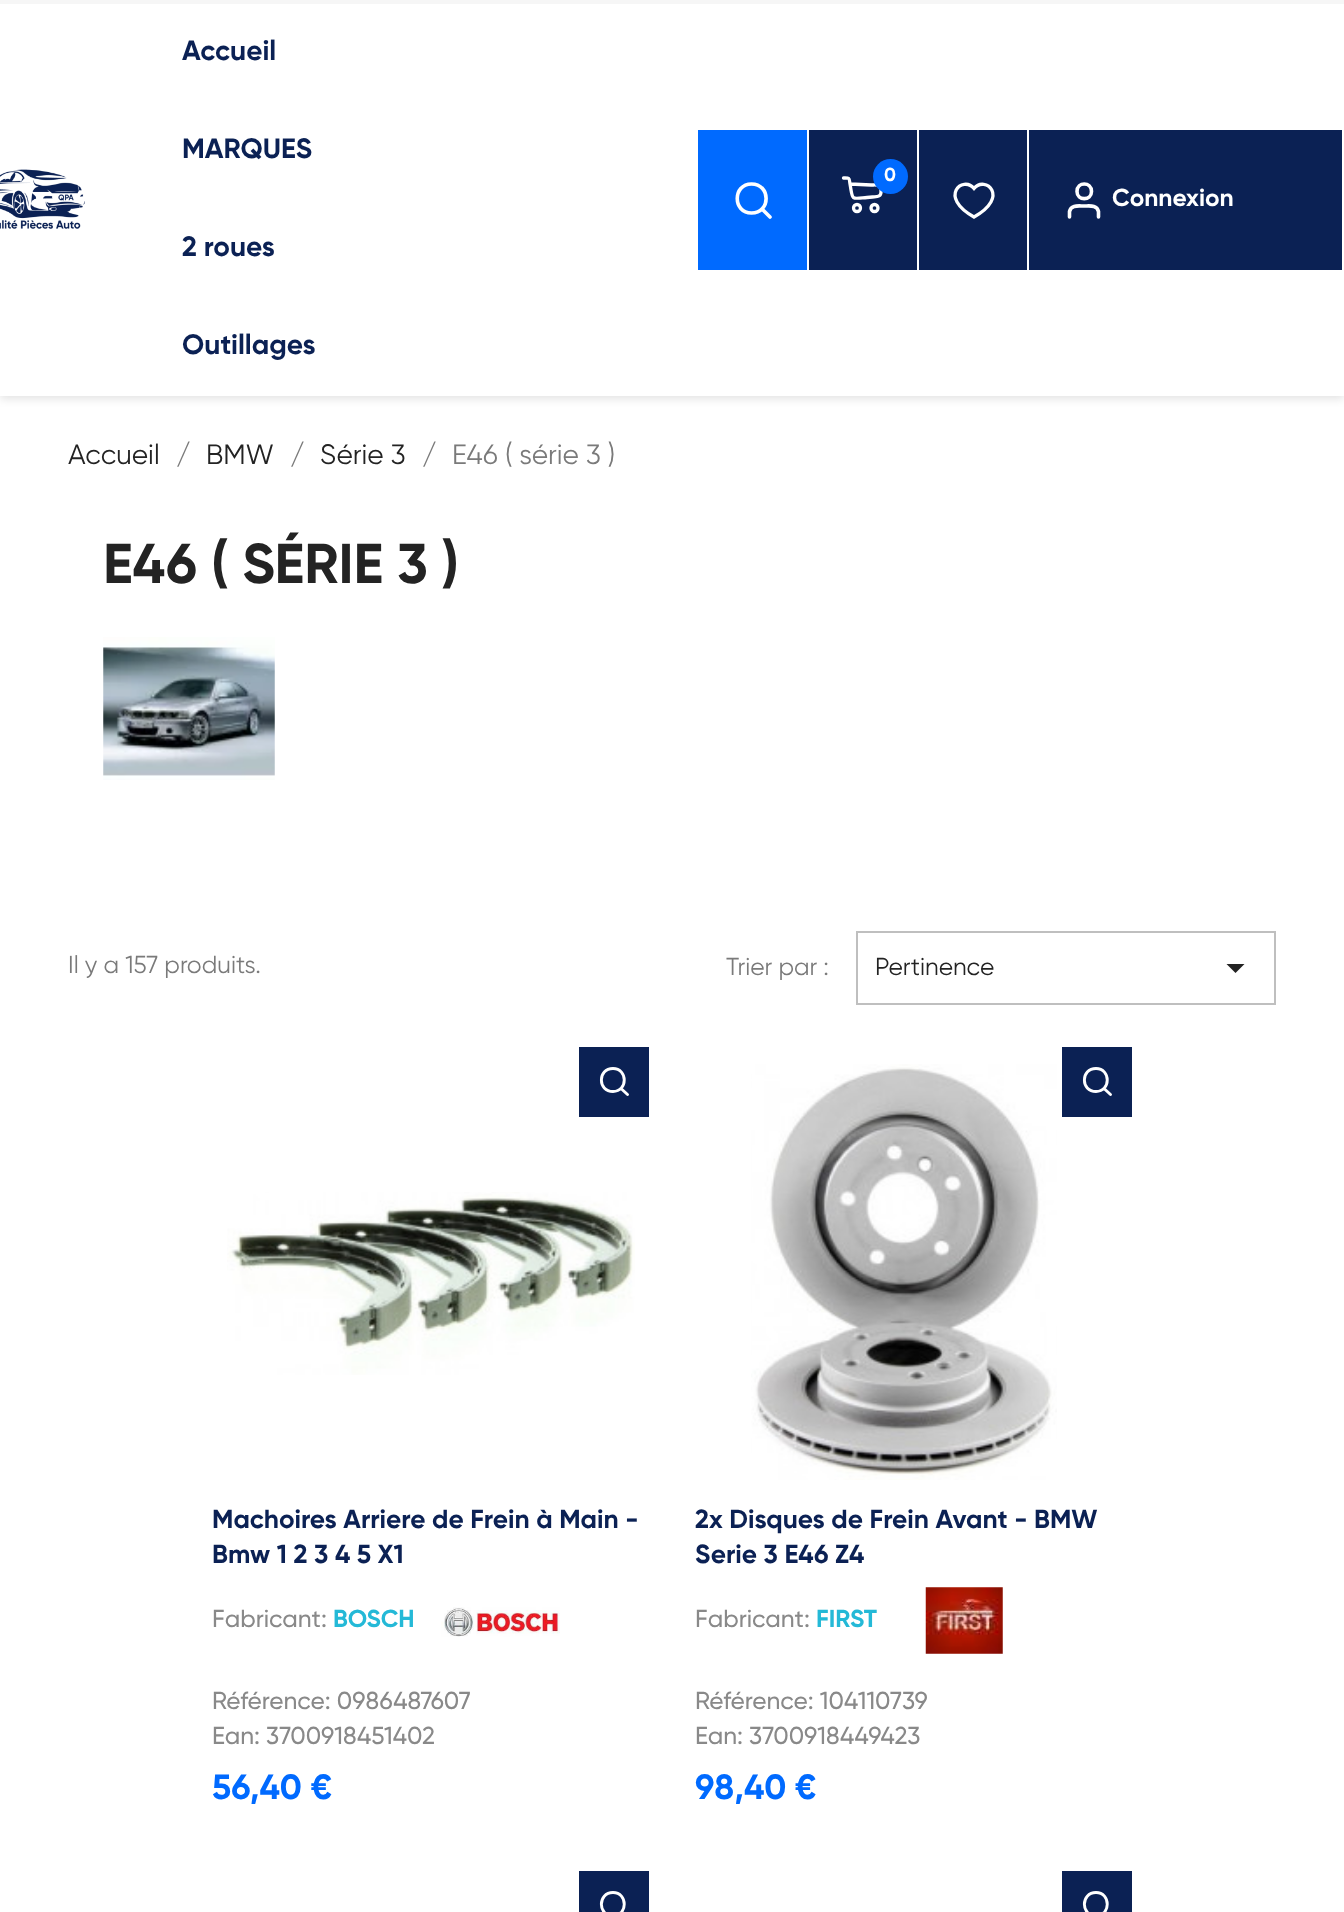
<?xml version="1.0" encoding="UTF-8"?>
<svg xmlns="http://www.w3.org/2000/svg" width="1344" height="1912">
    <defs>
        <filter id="blur1" x="-50%" y="-200%" width="200%" height="500%"><feGaussianBlur stdDeviation="4.5"/></filter>
    </defs>
    <rect width="100%" height="100%" fill="#FFFFFF"/>
    <rect x="0" y="4" width="1344" height="395" fill="#000000" fill-opacity="0.11" filter="url(#blur1)"/>
    <rect x="0" y="4" width="1344" height="392" fill="#FFFFFF"/>
    <rect x="0" y="0" width="1344" height="4" fill="#F6F6F6"/>
    <image x="0" y="169" width="85" height="60" href="img_01.png"/>
    <text x="182" y="60" font-family="Gilroy" font-size="28" font-weight="700" fill="#0B2154">Accueil</text>
    <text x="182" y="158" font-family="Gilroy" font-size="28" font-weight="700" fill="#0B2154">MARQUES</text>
    <text x="182" y="256" font-family="Gilroy" font-size="28" font-weight="700" fill="#0B2154">2 roues</text>
    <text x="182" y="354" font-family="Gilroy" font-size="28" font-weight="700" fill="#0B2154">Outillages</text>
    <rect x="698" y="130" width="109" height="140" fill="#006AFF"/>
    <path d="M 751.5 213 C 771 213 771 184 751.5 184 C 732.5 184 732.5 213 751.5 213 Z M 770 217 L 762 209" fill="none" stroke="#FFFFFF" stroke-width="3.6" stroke-linecap="round" stroke-linejoin="round"/>
    <rect x="809" y="130" width="108" height="140" fill="#0B2154"/>
    <path d="M 843.5 178 C 850 178 849 177.5 850 184 M 850 184 C 853 200.5 850 199 867 197.5 L 872.5 197 C 877 196.5 881 197 881 192 C 881 184 879 185 871 185 Z" fill="none" stroke="#FFFFFF" stroke-width="3.3" stroke-linecap="round" stroke-linejoin="round"/>
    <circle cx="890.5" cy="176.5" r="17.5" fill="#006AFF"/>
    <text x="884" y="181" font-family="Gilroy" font-size="19" font-weight="700" fill="#FFFFFF">0</text>
    <circle cx="857" cy="208" r="3.5" fill="none" stroke="#FFFFFF" stroke-width="3.3"/>
    <circle cx="874.5" cy="208" r="3.5" fill="none" stroke="#FFFFFF" stroke-width="3.3"/>
    <rect x="919" y="130" width="108" height="140" fill="#0B2154"/>
    <path d="M 974 217 C 937.5 196.5 963 175 974 188.5 C 985 175 1010.5 196.5 974 217 Z" fill="none" stroke="#FFFFFF" stroke-width="3.3"/>
    <rect x="1029" y="130" width="313" height="140" fill="#0B2154"/>
    <path d="M 1098.5 217 V 211.5 C 1097 204.5 1089.5 206 1084 206 C 1078.5 206 1071 204.5 1069.5 211.5 V 217 M 1091.5 191.5 C 1091.5 201 1077 201 1077 191.5 C 1077 181.5 1091.5 181.5 1091.5 191.5 Z" fill="none" stroke="#FFFFFF" stroke-width="3.6" stroke-linecap="round" stroke-linejoin="round"/>
    <text x="1112" y="206" font-family="Gilroy" font-size="24.5" font-weight="700" fill="#FFFFFF">Connexion</text>
    <text x="68" y="464" font-family="Gilroy" font-size="28" fill="#232323">Accueil</text>
    <text x="176" y="464" font-family="Gilroy" font-size="28" fill="#7A7A7A">/</text>
    <text x="206" y="464" font-family="Gilroy" font-size="28" fill="#232323">BMW</text>
    <text x="290" y="464" font-family="Gilroy" font-size="28" fill="#7A7A7A">/</text>
    <text x="320" y="464" font-family="Gilroy" font-size="28" fill="#232323">Série 3</text>
    <text x="422" y="464" font-family="Gilroy" font-size="28" fill="#7A7A7A">/</text>
    <text x="452" y="464" font-family="Gilroy" font-size="28" fill="#7A7A7A">E46 ( série 3 )</text>
    <text x="103" y="583" font-family="Gilroy" font-size="56" font-weight="700" fill="#232323">E46 ( SÉRIE 3 )</text>
    <image x="103" y="637" width="172" height="143" href="img_02.png"/>
    <text x="68" y="973" font-family="Gilroy" font-size="24.5" fill="#7A7A7A">Il y a 157 produits.</text>
    <text x="726" y="975" font-family="Gilroy" font-size="24.5" fill="#7A7A7A">Trier par :</text>
    <rect x="857" y="932" width="418" height="72" fill="none" stroke="#BFBFBF" stroke-width="2"/>
    <text x="875" y="975" font-family="Gilroy" font-size="24.5" fill="#232323">Pertinence</text>
    <path d="M 1226.5 964 H 1244.5 L 1235.5 973 Z" fill="#232323"/>
    <rect x="579" y="1047" width="70" height="70" fill="#0B2154"/>
    <path d="M 613 1091.5 C 628 1091.5 628 1068.5 613 1068.5 C 597.5 1068.5 597.5 1091.5 613 1091.5 Z M 627.5 1094.5 L 621 1088.5" fill="none" stroke="#FFFFFF" stroke-width="2.9" stroke-linecap="round" stroke-linejoin="round"/>
    <image x="227" y="1192" width="408" height="183" href="img_03.png"/>
    <text font-family="Gilroy" font-size="26.25" font-weight="700" fill="#0B2154">
        <tspan x="212" y="1528">Machoires Arriere de Frein à Main -</tspan>
        <tspan x="212" y="1563">Bmw 1 2 3 4 5 X1</tspan>
    </text>
    <text x="212" y="1627" font-family="Gilroy" font-size="24.5" font-weight="500" fill="#898989">Fabricant:</text>
    <text x="333" y="1627" font-family="Gilroy" font-size="24.5" font-weight="700" fill="#24B9D7">BOSCH</text>
    <image x="441" y="1607" width="119" height="30" href="img_04.png"/>
    <text font-family="Gilroy" font-size="24.5" font-weight="500" fill="#898989">
        <tspan x="212" y="1709">Référence: 0986487607</tspan>
        <tspan x="212" y="1744">Ean: 3700918451402</tspan>
    </text>
    <text x="212" y="1799" font-family="Gilroy" font-size="35" font-weight="700" fill="#006AFF">56,40 €</text>
    <image x="751" y="1064" width="306" height="416" href="img_05.png"/>
    <rect x="1062" y="1047" width="70" height="70" fill="#0B2154"/>
    <path d="M 1096 1091.5 C 1111 1091.5 1111 1068.5 1096 1068.5 C 1080.5 1068.5 1080.5 1091.5 1096 1091.5 Z M 1110.5 1094.5 L 1104 1088.5" fill="none" stroke="#FFFFFF" stroke-width="2.9" stroke-linecap="round" stroke-linejoin="round"/>
    <text font-family="Gilroy" font-size="26.25" font-weight="700" fill="#0B2154">
        <tspan x="695" y="1528">2x Disques de Frein Avant - BMW</tspan>
        <tspan x="695" y="1563">Serie 3 E46 Z4</tspan>
    </text>
    <text x="695" y="1627" font-family="Gilroy" font-size="24.5" font-weight="500" fill="#898989">Fabricant:</text>
    <text x="816" y="1627" font-family="Gilroy" font-size="24.5" font-weight="700" fill="#24B9D7">FIRST</text>
    <image x="925" y="1587" width="78" height="67" href="img_06.png"/>
    <text font-family="Gilroy" font-size="24.5" font-weight="500" fill="#898989">
        <tspan x="695" y="1709">Référence: 104110739</tspan>
        <tspan x="695" y="1744">Ean: 3700918449423</tspan>
    </text>
    <text x="695" y="1799" font-family="Gilroy" font-size="35" font-weight="700" fill="#006AFF">98,40 €</text>
    <rect x="579" y="1871" width="70" height="41" fill="#0B2154"/>
    <path d="M 613 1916 C 628 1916 628 1892.5 613 1892.5 C 597.5 1892.5 597.5 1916 613 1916 Z M 627.5 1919 L 621 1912.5" fill="none" stroke="#FFFFFF" stroke-width="2.9" stroke-linecap="round" stroke-linejoin="round"/>
    <rect x="1062" y="1871" width="70" height="41" fill="#0B2154"/>
    <path d="M 1096 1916 C 1111 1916 1111 1892.5 1096 1892.5 C 1080.5 1892.5 1080.5 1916 1096 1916 Z M 1110.5 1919 L 1104 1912.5" fill="none" stroke="#FFFFFF" stroke-width="2.9" stroke-linecap="round" stroke-linejoin="round"/>
</svg>
